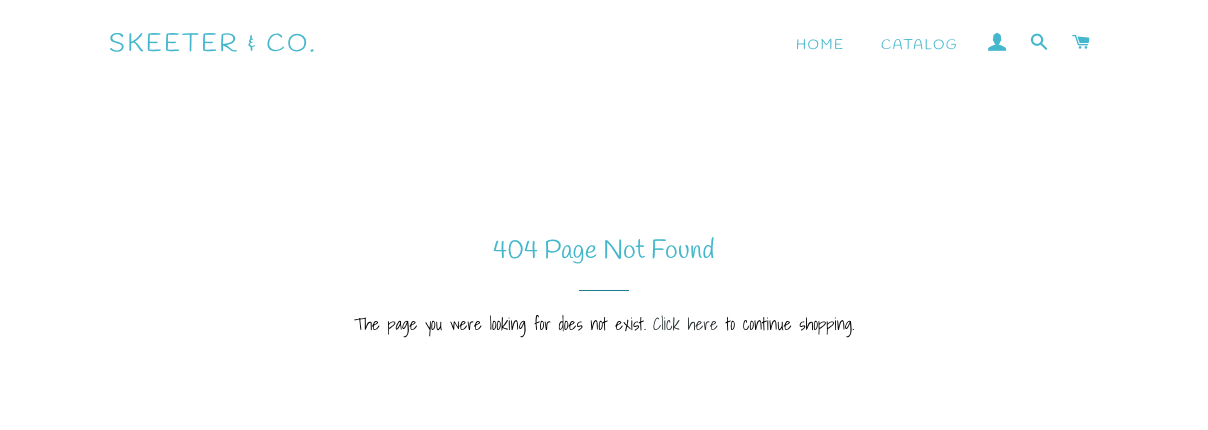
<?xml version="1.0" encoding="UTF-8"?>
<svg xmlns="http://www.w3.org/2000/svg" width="1208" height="430">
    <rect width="100%" height="100%" fill="#FFFFFF"/>
    <text x="109" y="51" font-family="Handlee" font-size="25" letter-spacing="2.5" fill="#44B7CC">SKEETER &amp; CO.</text>
    <text x="796" y="49" font-family="Handlee" font-size="14" letter-spacing="1.5" fill="#44B7CC">HOME</text>
    <text x="881" y="49" font-family="Handlee" font-size="14" letter-spacing="1.5" fill="#44B7CC">CATALOG</text>
    <image x="988" y="32" width="19" height="19" href="img_01.png"/>
    <image x="1030" y="33" width="18" height="17" href="img_02.png"/>
    <image x="1072" y="34" width="18" height="15" href="img_03.png"/>
    <text x="493" y="258" font-family="Handlee" font-size="26" fill="#44B7CC">404 Page Not Found</text>
    <rect x="579" y="290" width="50" height="1" fill="#197C8F"/>
    <text x="354" y="330" font-family="Shadows Into Light" font-size="17" fill="#000000">The page you were looking for does not exist.</text>
    <text x="653" y="330" font-family="Shadows Into Light" font-size="17" fill="#2A3234">Click here</text>
    <text x="726" y="330" font-family="Shadows Into Light" font-size="17" fill="#000000">to continue shopping.</text>
</svg>
